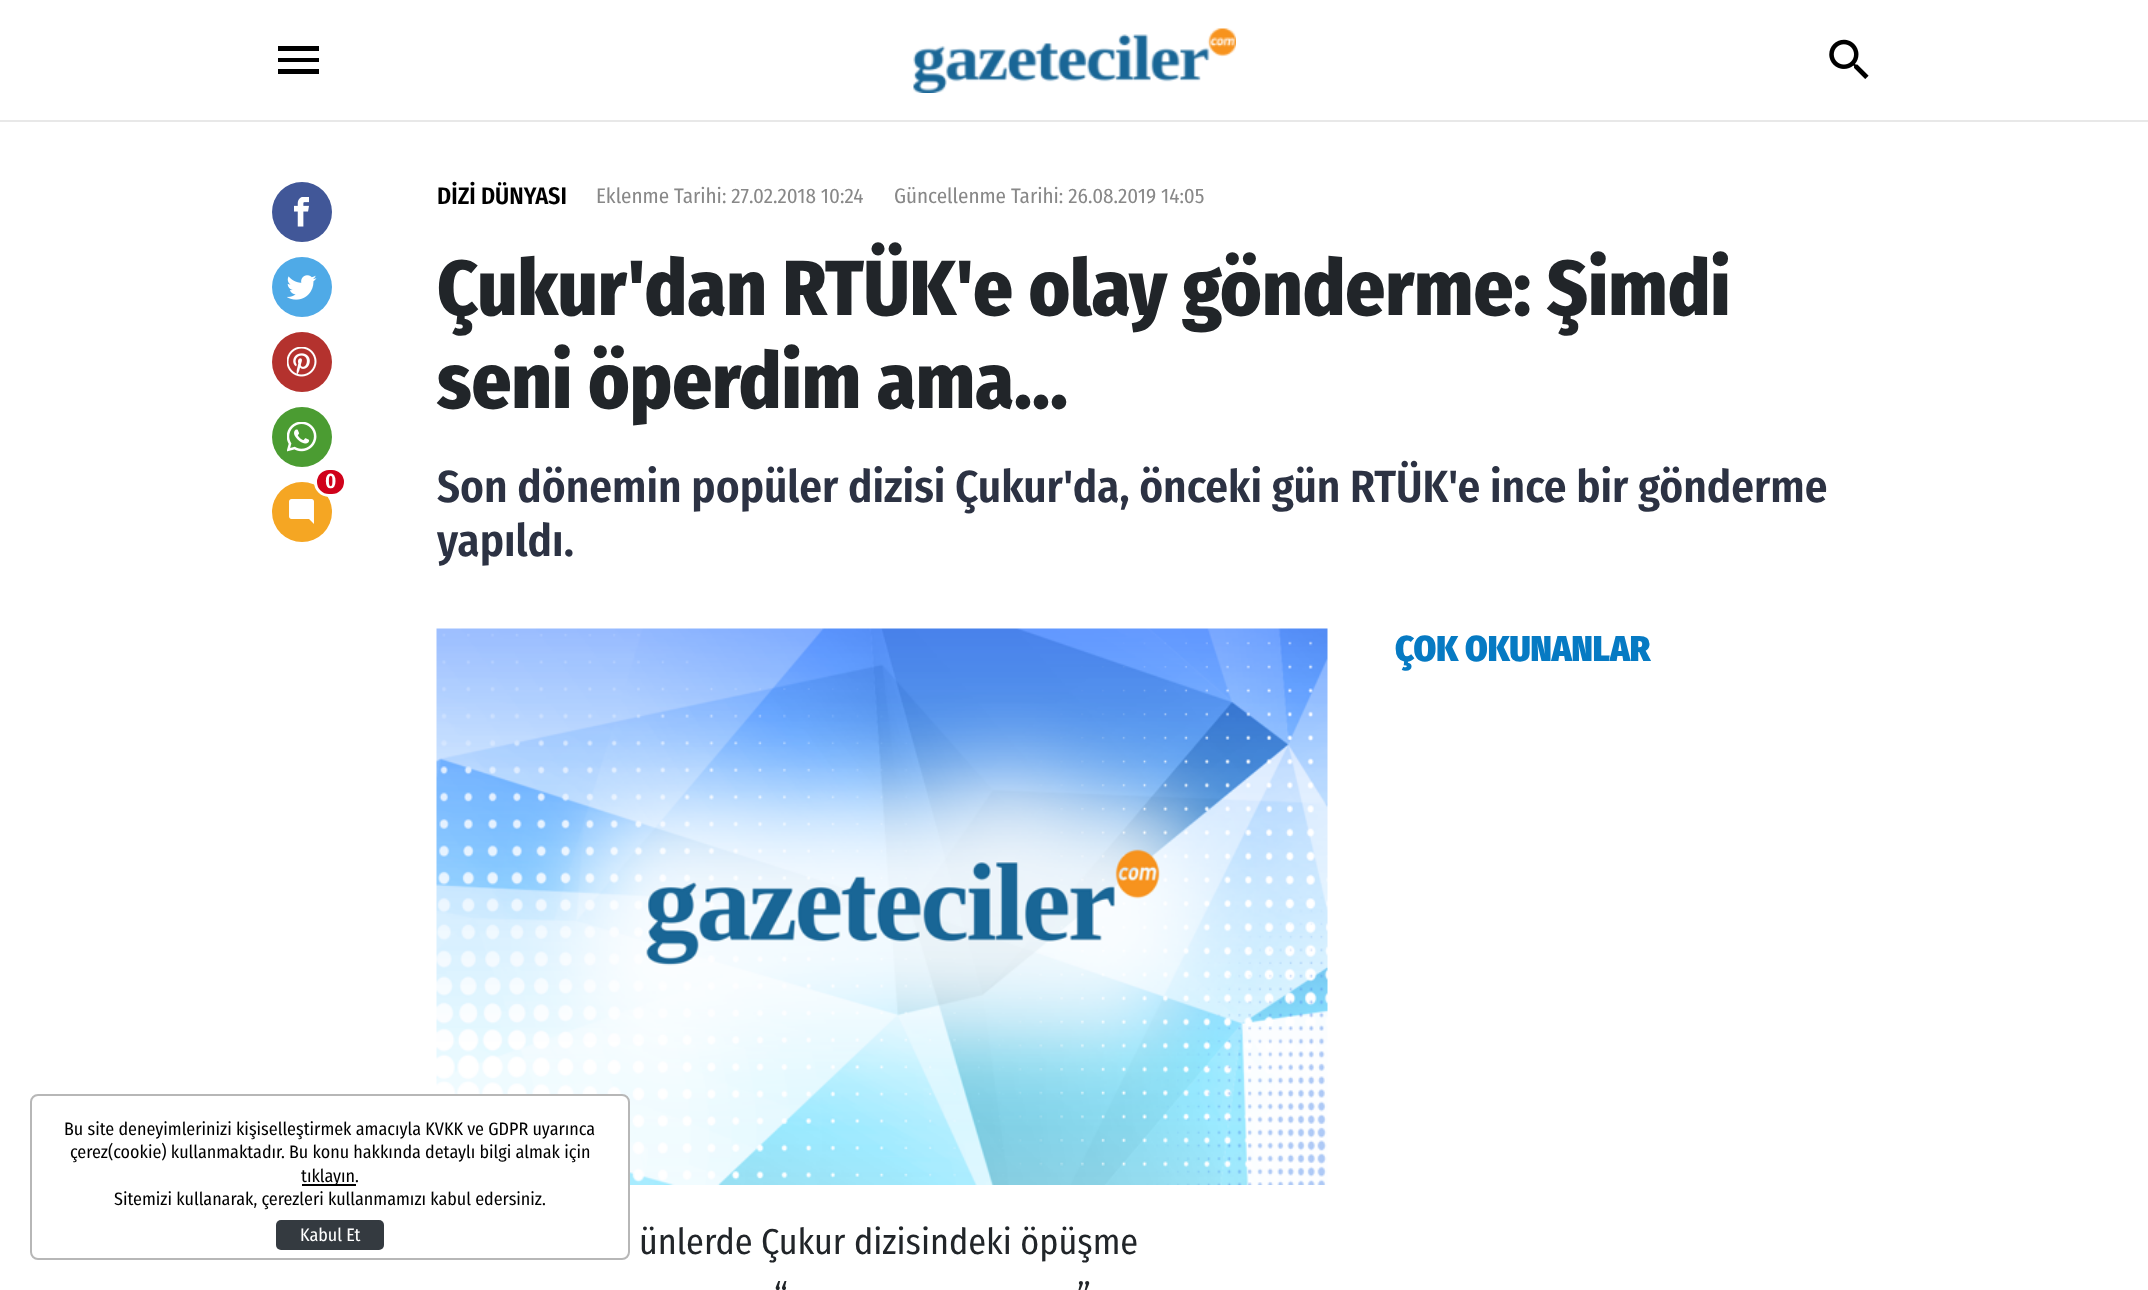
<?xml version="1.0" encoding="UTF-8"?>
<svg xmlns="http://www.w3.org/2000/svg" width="2148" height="1290">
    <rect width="100%" height="100%" fill="#FFFFFF"/>
    <rect x="0" y="120" width="2148" height="2" fill="#E8E8E8"/>
    <path d="M 278 46 H 319 V 51 H 278 Z M 278 62 V 58 H 319 V 62 Z M 278 74 V 69 H 319 V 74 Z" fill="#000000"/>
    <image x="913" y="28" width="323" height="65" href="img_01.png"/>
    <image x="1829" y="39" width="40" height="40" href="img_02.png"/>
    <circle cx="302" cy="212" r="30" fill="#415798"/>
    <image x="294" y="197" width="15" height="30" href="img_03.png"/>
    <circle cx="302" cy="287" r="30" fill="#4FAAE7"/>
    <image x="287" y="275" width="30" height="25" href="img_04.png"/>
    <circle cx="302" cy="362" r="30" fill="#B4322E"/>
    <image x="287" y="347" width="30" height="30" href="img_05.png"/>
    <circle cx="302" cy="437" r="30" fill="#4B9C32"/>
    <image x="287" y="422" width="30" height="30" href="img_06.png"/>
    <circle cx="302" cy="512" r="30" fill="#F5A623"/>
    <rect x="315.5" y="468.5" width="30" height="27" rx="13.5" fill="#D0021B" stroke="#FFFFFF" stroke-width="3"/>
    <text x="325" y="488" font-family="Fira Sans Condensed" font-size="21" font-weight="600" fill="#FFFFFF">0</text>
    <image x="289" y="499" width="25" height="25" href="img_07.png"/>
    <text x="437" y="204" font-family="Fira Sans Condensed" font-size="24" font-weight="600" fill="#000000">DİZİ DÜNYASI</text>
    <text x="596" y="203" font-family="Fira Sans Condensed" font-size="21" fill="#888888">Eklenme Tarihi: 27.02.2018 10:24</text>
    <text x="894" y="203" font-family="Fira Sans Condensed" font-size="21" fill="#888888">Güncellenme Tarihi: 26.08.2019 14:05</text>
    <text font-family="Fira Sans Condensed" font-size="78" font-weight="800" fill="#212529">
        <tspan x="437" y="315">Çukur'dan RTÜK'e olay gönderme: Şimdi</tspan>
        <tspan x="437" y="408">seni öperdim ama...</tspan>
    </text>
    <text font-family="Fira Sans Condensed" font-size="45" font-weight="600" fill="#2C3243">
        <tspan x="437" y="502">Son dönemin popüler dizisi Çukur'da, önceki gün RTÜK'e ince bir gönderme</tspan>
        <tspan x="437" y="556">yapıldı.</tspan>
    </text>
    <text x="1395" y="661" font-family="Fira Sans Condensed" font-size="36" font-weight="900" fill="#067AC3">ÇOK OKUNANLAR</text>
    <image x="436" y="628" width="892" height="557" href="img_08.png"/>
    <text x="639" y="1254" font-family="Fira Sans Condensed" font-size="36" fill="#212529">ünlerde Çukur dizisindeki öpüşme</text>
    <text x="774" y="1308" font-family="Fira Sans Condensed" font-size="36" fill="#212529">“</text>
    <text x="1077" y="1308" font-family="Fira Sans Condensed" font-size="36" fill="#212529">”</text>
    <rect x="31" y="1095" width="598" height="164" rx="7" fill="#FFFFFF" stroke="#B7B7B7" stroke-width="2"/>
    <text x="64" y="1135" font-family="Fira Sans Condensed" font-size="18" fill="#000000">Bu site deneyimlerinizi kişiselleştirmek amacıyla KVKK ve GDPR uyarınca</text>
    <text x="70" y="1158" font-family="Fira Sans Condensed" font-size="18" fill="#000000">çerez(cookie) kullanmaktadır. Bu konu hakkında detaylı bilgi almak için</text>
    <rect x="302" y="1184" width="54" height="2" fill="#000000"/>
    <text x="301" y="1182" font-family="Fira Sans Condensed" font-size="18" fill="#000000">tıklayın.</text>
    <text x="114" y="1205" font-family="Fira Sans Condensed" font-size="18" fill="#000000">Sitemizi kullanarak, çerezleri kullanmamızı kabul edersiniz.</text>
    <rect x="276" y="1220" width="108" height="30" rx="5" fill="#343A40"/>
    <text x="300" y="1241" font-family="Fira Sans Condensed" font-size="18" fill="#FFFFFF">Kabul Et</text>
</svg>
